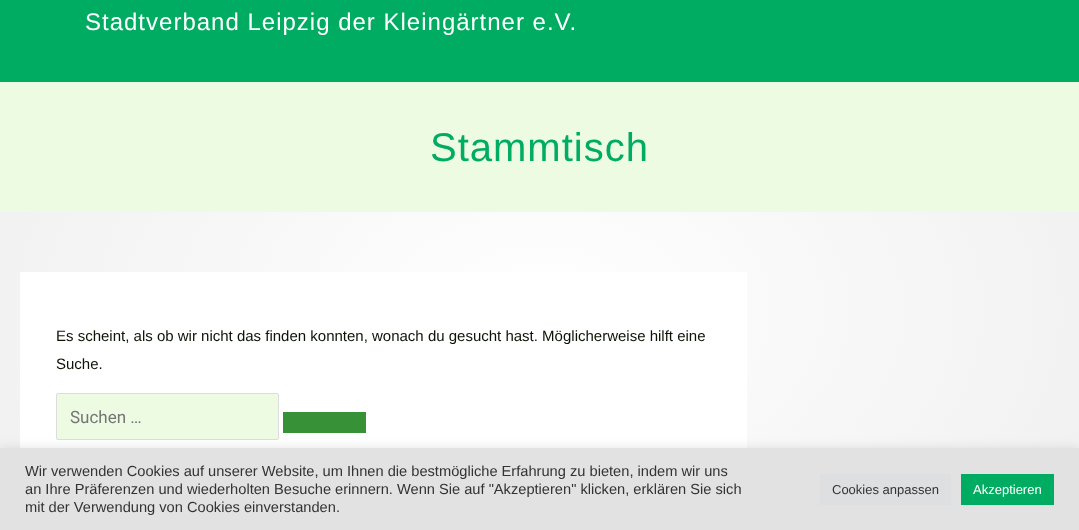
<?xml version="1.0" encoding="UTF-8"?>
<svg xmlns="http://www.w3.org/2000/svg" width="1079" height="530">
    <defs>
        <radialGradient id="g1" gradientUnits="userSpaceOnUse" cx="0" cy="0" r="1" gradientTransform="matrix(763 0 0 491 540 309)"><stop offset="0" stop-color="#FFFFFF"/><stop offset="1" stop-color="#EDEDED"/></radialGradient>
        <filter id="blur1" x="-50%" y="-200%" width="200%" height="500%"><feGaussianBlur stdDeviation="5"/></filter>
    </defs>
    <rect width="100%" height="100%" fill="#FFFFFF"/>
    <rect x="0" y="212" width="1079" height="236" fill="url(#g1)"/>
    <rect x="0" y="0" width="1079" height="82" fill="#00AC62"/>
    <text x="85" y="30" font-family="Liberation Sans" font-size="24" letter-spacing="1" fill="#FFFFFF">Stadtverband Leipzig der Kleingärtner e.V.</text>
    <rect x="0" y="82" width="1079" height="130" fill="#EDFBE2"/>
    <text x="430" y="161" font-family="Liberation Sans" font-size="40" letter-spacing="1" fill="#00AC62">Stammtisch</text>
    <rect x="20" y="272" width="727" height="176" fill="#FFFFFF"/>
    <text font-family="Liberation Sans" font-size="15" fill="#0C1406">
        <tspan x="56" y="341">Es scheint, als ob wir nicht das finden konnten, wonach du gesucht hast. Möglicherweise hilft eine</tspan>
        <tspan x="56" y="369">Suche.</tspan>
    </text>
    <rect x="56.5" y="393.5" width="222" height="46" rx="1.5" fill="#EDFBE2" stroke="#DDDDDD"/>
    <text x="70" y="423" font-family="Roboto" font-size="17" fill="#757575">Suchen …</text>
    <rect x="283" y="412" width="83" height="21" fill="#379237"/>
    <rect x="0" y="447" width="1079" height="82" fill="#ACABAB" fill-opacity="0.3" filter="url(#blur1)"/>
    <rect x="0" y="448" width="1079" height="82" fill="#E2E2E2"/>
    <text font-family="Liberation Sans" font-size="14.65" fill="#333333">
        <tspan x="25" y="476">Wir verwenden Cookies auf unserer Website, um Ihnen die bestmögliche Erfahrung zu bieten, indem wir uns</tspan>
        <tspan x="25" y="494">an Ihre Präferenzen und wiederholten Besuche erinnern. Wenn Sie auf "Akzeptieren" klicken, erklären Sie sich</tspan>
        <tspan x="25" y="512">mit der Verwendung von Cookies einverstanden.</tspan>
    </text>
    <rect x="820" y="474" width="131" height="31" fill="#DEDFE0"/>
    <text x="832" y="494" font-family="Liberation Sans" font-size="13" fill="#333333">Cookies anpassen</text>
    <rect x="961" y="474" width="93" height="31" fill="#00AC62"/>
    <text x="973" y="494" font-family="Liberation Sans" font-size="13" fill="#FFFFFF">Akzeptieren</text>
</svg>
